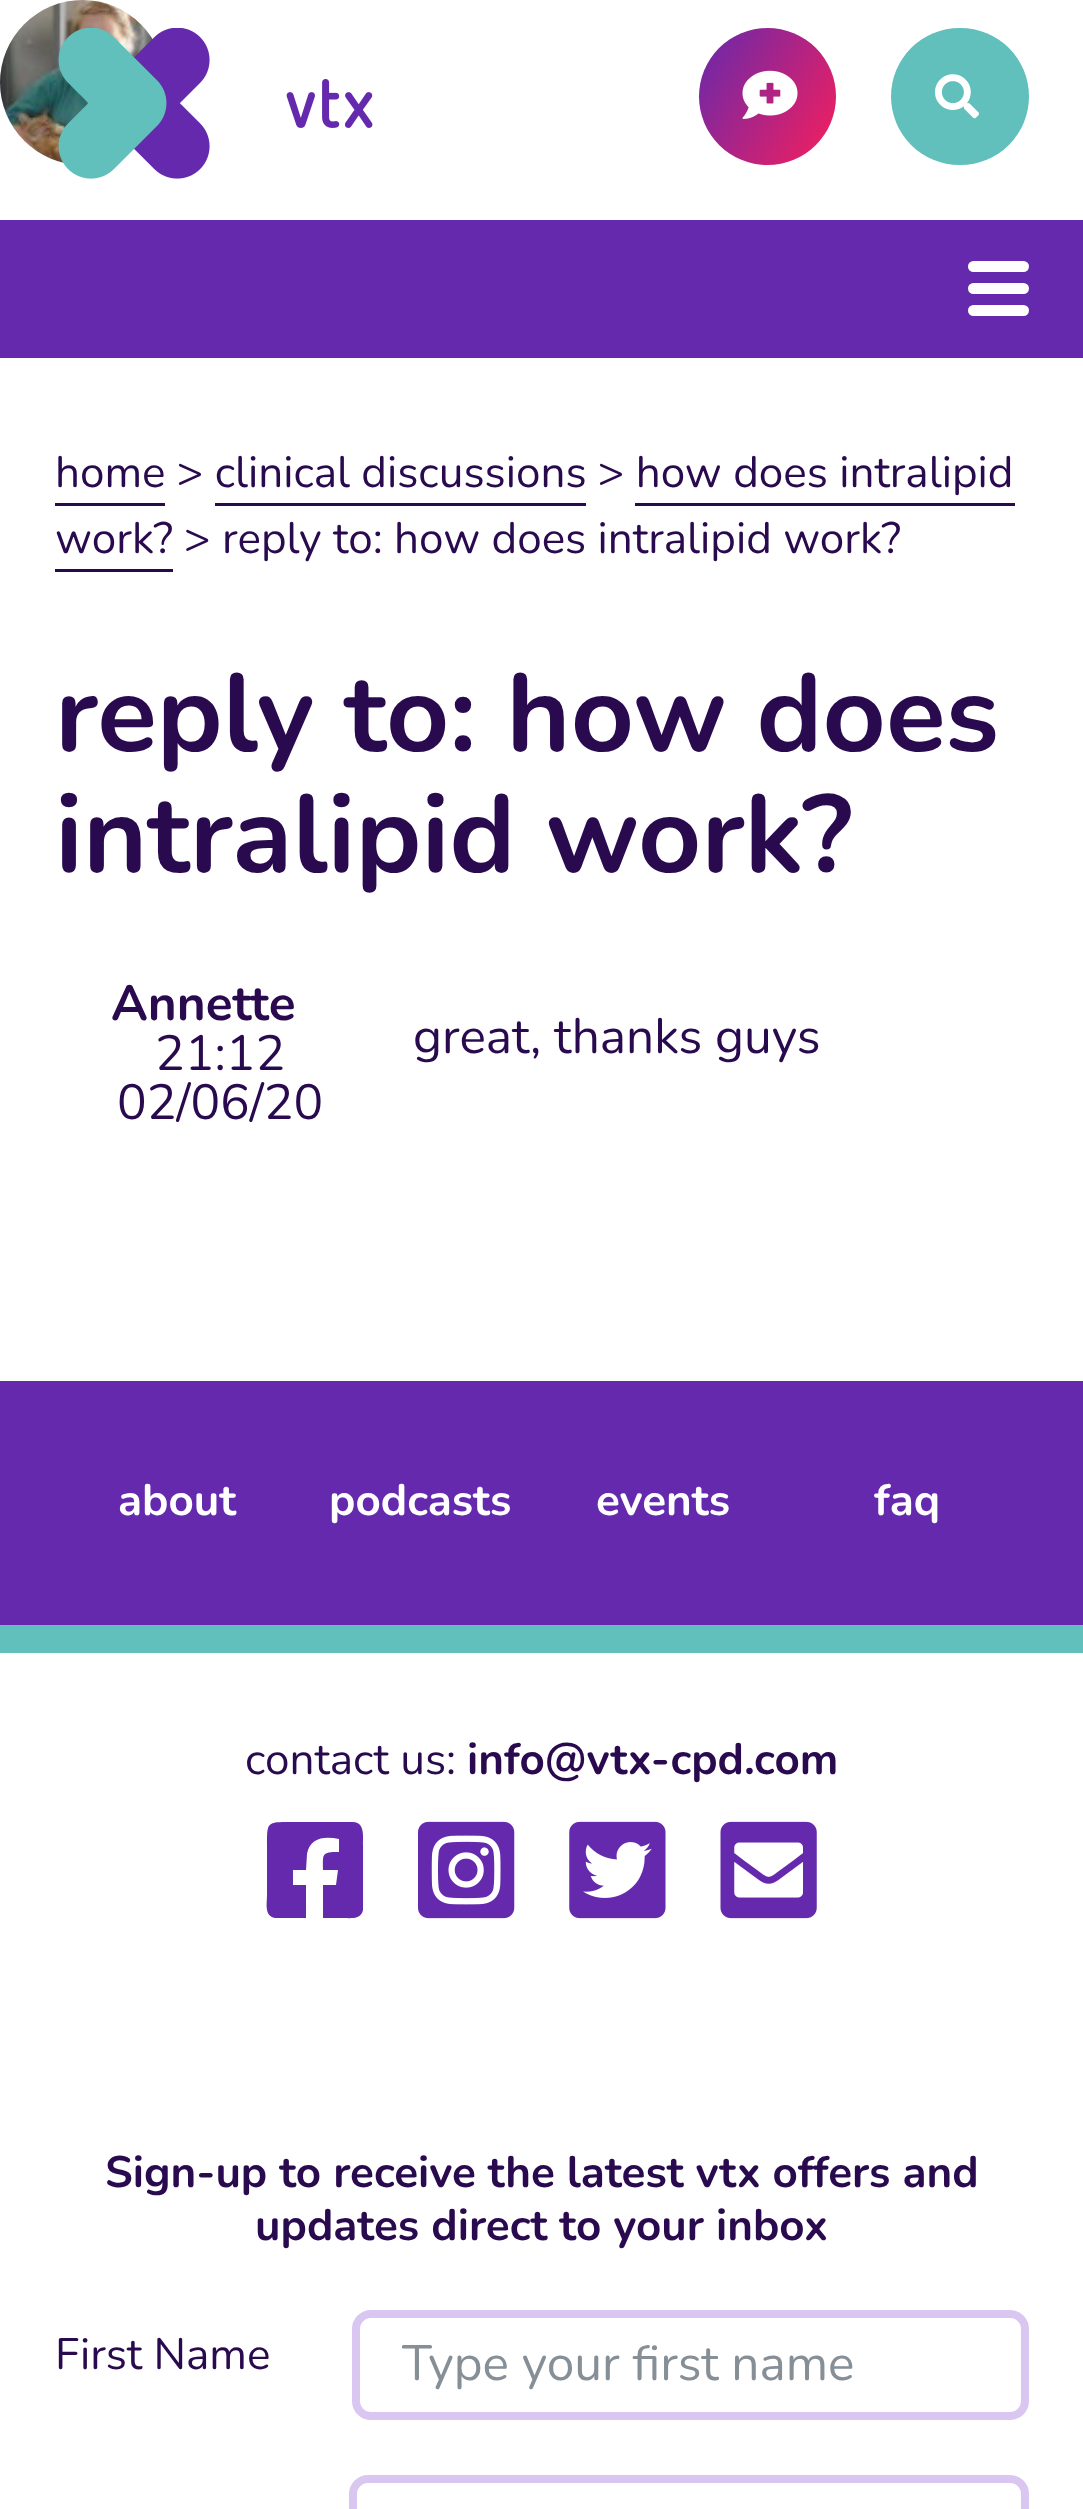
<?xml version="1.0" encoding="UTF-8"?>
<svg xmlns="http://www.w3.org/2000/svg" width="1083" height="2509">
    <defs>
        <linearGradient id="g1" gradientUnits="userSpaceOnUse" x1="686" y1="48" x2="848" y2="145"><stop offset="0" stop-color="#6429AD"/><stop offset="1" stop-color="#F81E5C"/></linearGradient>
    </defs>
    <rect width="100%" height="100%" fill="#FFFFFF"/>
    <image x="0" y="0" width="153" height="163" href="img_04.png"/>
    <image x="58" y="28" width="315" height="151" href="img_01.png"/>
    <circle cx="767.5" cy="96.5" r="68.5" fill="url(#g1)"/>
    <image x="742" y="70" width="56" height="49" href="img_02.png"/>
    <rect x="891" y="28" width="138" height="137" rx="68.5" fill="#61C0BC"/>
    <image x="935" y="74" width="44" height="45" href="img_03.png"/>
    <rect x="0" y="220" width="1083" height="138" fill="#6429AD"/>
    <rect x="968" y="283" width="61" height="11" rx="5.5" fill="#FFFFFF"/>
    <rect x="968" y="261" width="61" height="11" rx="5.5" fill="#FFFFFF"/>
    <rect x="968" y="305" width="61" height="11" rx="5.5" fill="#FFFFFF"/>
    <text x="55" y="487" font-family="Nunito" font-size="44" fill="#290A4E">home &gt; clinical discussions &gt; how does intralipid</text>
    <rect x="55" y="503" width="110" height="3" fill="#290A4E"/>
    <rect x="215" y="503" width="371" height="3" fill="#290A4E"/>
    <rect x="635" y="503" width="380" height="3" fill="#290A4E"/>
    <text x="55" y="553" font-family="Nunito" font-size="44" fill="#290A4E">work? &gt; reply to: how does intralipid work?</text>
    <rect x="55" y="569" width="118" height="3" fill="#290A4E"/>
    <text font-family="Nunito" font-size="110" font-weight="700" fill="#290A4E">
        <tspan x="55" y="751">reply to: how does</tspan>
        <tspan x="55" y="872">intralipid work?</tspan>
    </text>
    <text x="111" y="1020" font-family="Nunito" font-size="49.5" font-weight="700" fill="#290A4E">Annette</text>
    <text x="155" y="1070" font-family="Nunito" font-size="49.5" fill="#290A4E">21:12</text>
    <text x="117" y="1119" font-family="Nunito" font-size="49.5" fill="#290A4E">02/06/20</text>
    <text x="413" y="1053" font-family="Nunito" font-size="49.5" fill="#290A4E">great, thanks guys</text>
    <rect x="0" y="1381" width="1083" height="244" fill="#6429AD"/>
    <rect x="0" y="1625" width="1083" height="28" fill="#61C0BC"/>
    <text x="118" y="1515" font-family="Nunito" font-size="44" font-weight="700" fill="#FFFFFF">about</text>
    <text x="329" y="1515" font-family="Nunito" font-size="44" font-weight="700" fill="#FFFFFF">podcasts</text>
    <text x="596" y="1515" font-family="Nunito" font-size="44" font-weight="700" fill="#FFFFFF">events</text>
    <text x="874" y="1515" font-family="Nunito" font-size="44" font-weight="700" fill="#FFFFFF">faq</text>
    <text x="245" y="1774" font-family="Nunito" font-size="44" fill="#290A4E">contact us:</text>
    <text x="467" y="1774" font-family="Nunito" font-size="44" font-weight="700" fill="#290A4E">info@vtx-cpd.com</text>
    <path d="M 353 1822 C 365 1822 363 1837 363 1845 V 1910 C 361 1920 350 1918 343 1918 H 323 V 1885 H 336 L 338 1870 H 323 C 323 1854 321 1852 339 1852 V 1839 C 325 1836 310 1837 307 1854 L 306 1870 H 293 V 1885 H 306 V 1918 H 275 C 264 1916 267 1903 267 1895 V 1845 C 267 1822 267 1822 290 1822 Z" fill="#6429AD"/>
    <image x="418" y="1821" width="97" height="98" href="img_05.png"/>
    <image x="569" y="1821" width="97" height="98" href="img_06.png"/>
    <image x="720" y="1821" width="97" height="98" href="img_07.png"/>
    <text x="105" y="2187" font-family="Nunito" font-size="44" font-weight="700" fill="#290A4E">Sign-up to receive the latest vtx offers and</text>
    <text x="255" y="2240" font-family="Nunito" font-size="44" font-weight="700" fill="#290A4E">updates direct to your inbox</text>
    <text x="55" y="2369" font-family="Nunito" font-size="44" fill="#290A4E">First Name</text>
    <rect x="356" y="2314" width="669" height="102" rx="15" fill="none" stroke="#D9C6F1" stroke-width="8"/>
    <text x="402" y="2380" font-family="Nunito" font-size="49.5" fill="#868E96">Type your first name</text>
    <rect x="353" y="2479" width="672" height="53" rx="15" fill="none" stroke="#D9C6F1" stroke-width="8"/>
</svg>
